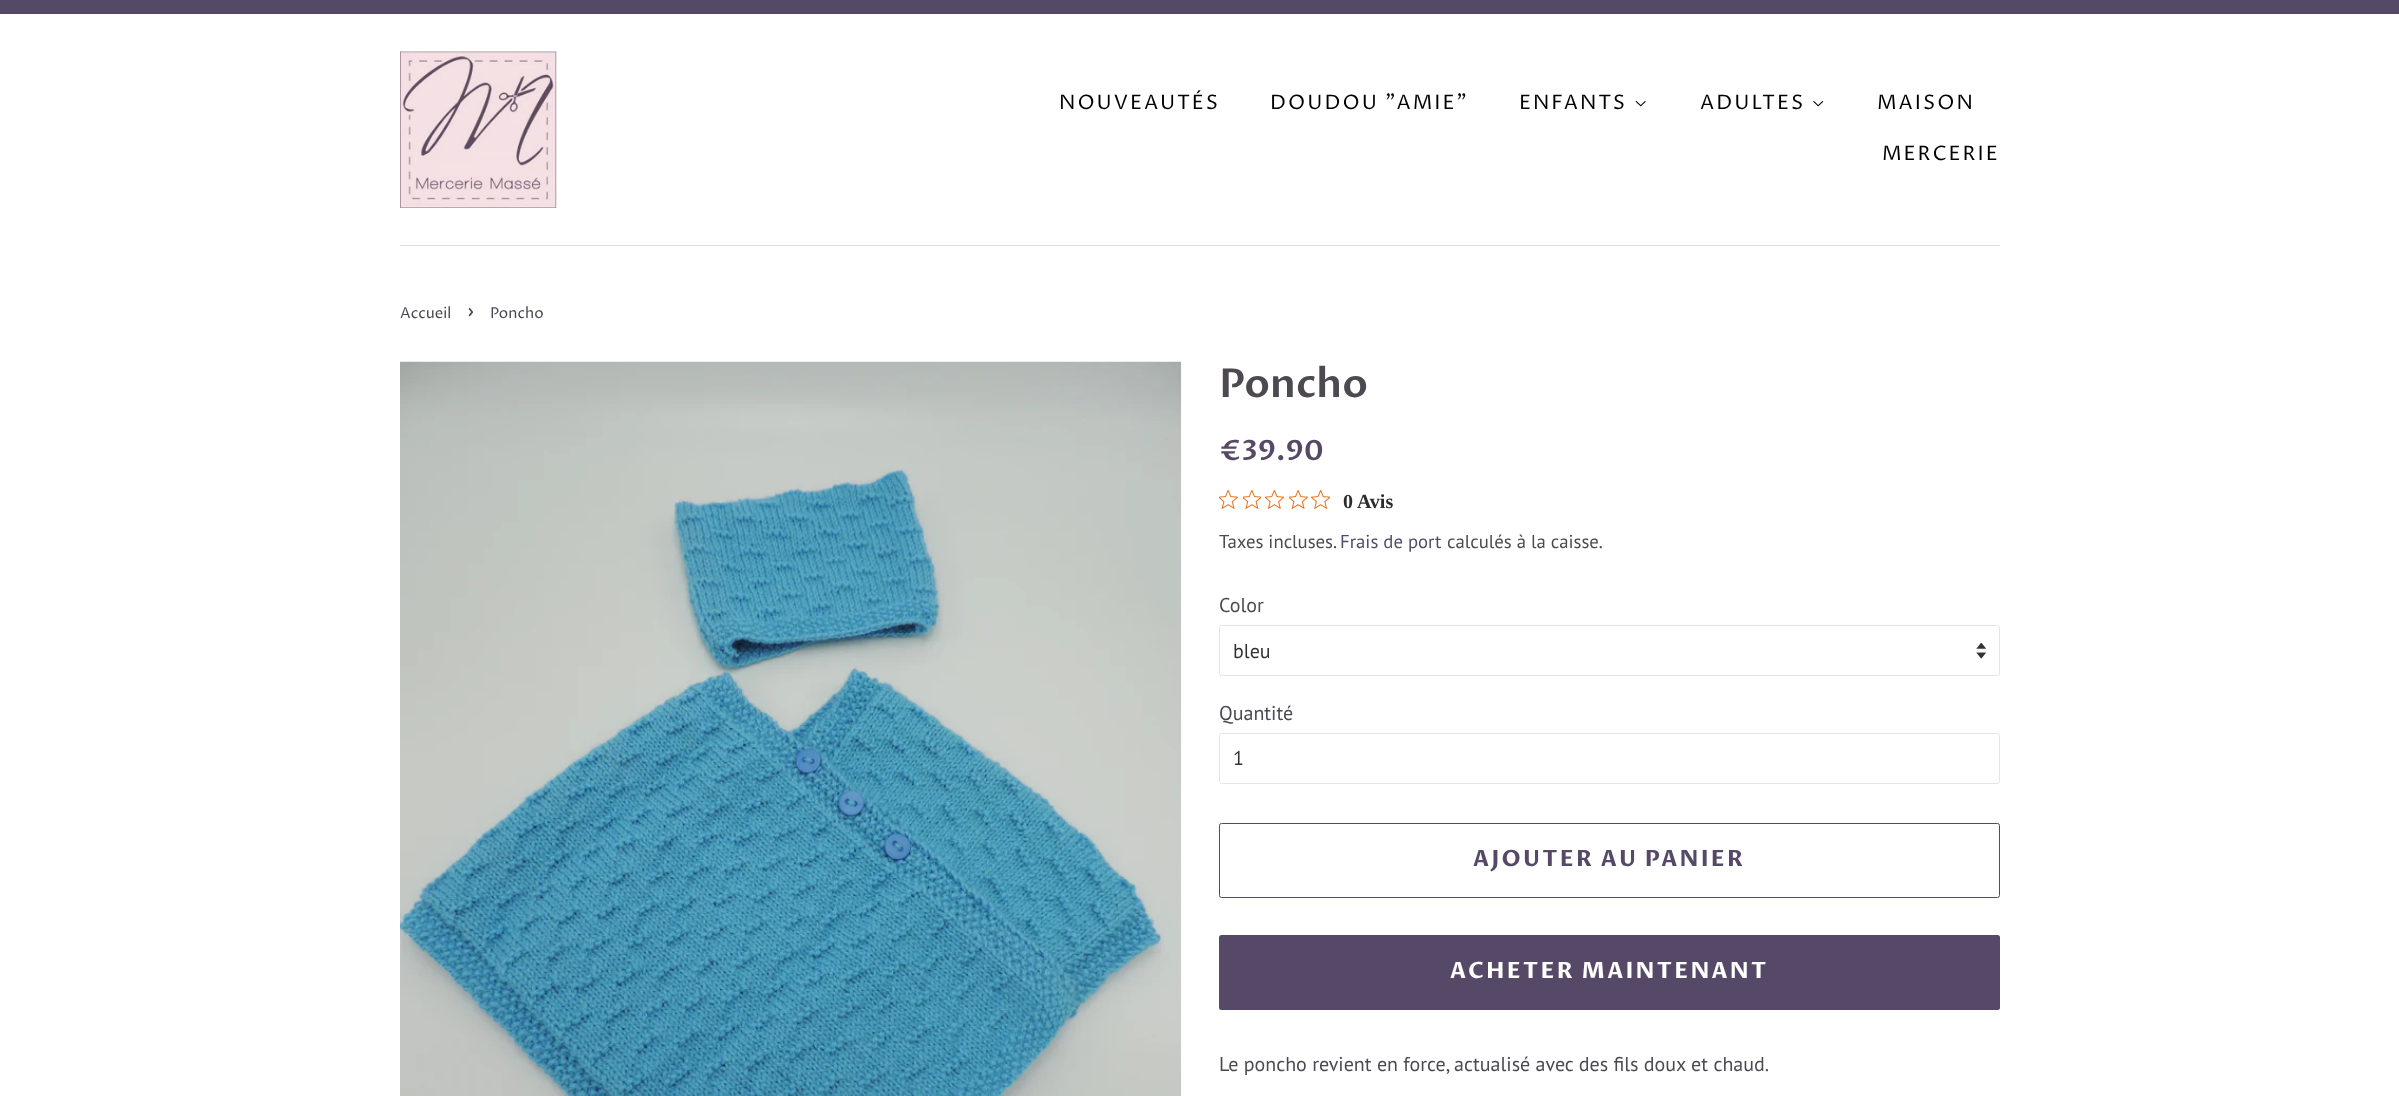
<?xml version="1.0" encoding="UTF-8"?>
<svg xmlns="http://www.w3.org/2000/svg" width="2399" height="1096">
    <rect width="100%" height="100%" fill="#FFFFFF"/>
    <rect x="0" y="0" width="2399" height="14" fill="#564967"/>
    <rect x="400" y="245" width="1600" height="1" fill="#DDDDDD"/>
    <image x="400" y="51" width="157" height="157" href="img_01.png"/>
    <text x="1059" y="109" font-family="Proza Libre" font-size="20" letter-spacing="2" fill="#000000">NOUVEAUTÉS</text>
    <text x="1270" y="109" font-family="Proza Libre" font-size="20" letter-spacing="2" fill="#000000">DOUDOU "AMIE"</text>
    <text x="1519" y="109" font-family="Proza Libre" font-size="20" letter-spacing="2" fill="#000000">ENFANTS</text>
    <image x="1635" y="100" width="11" height="7" href="img_02.png"/>
    <text x="1700" y="109" font-family="Proza Libre" font-size="20" letter-spacing="2" fill="#000000">ADULTES</text>
    <image x="1813" y="100" width="11" height="7" href="img_03.png"/>
    <text x="1877" y="109" font-family="Proza Libre" font-size="20" letter-spacing="2" fill="#000000">MAISON</text>
    <text x="1882" y="160" font-family="Proza Libre" font-size="20" letter-spacing="2" fill="#000000">MERCERIE</text>
    <text x="400" y="318" font-family="Proza Libre" font-size="15" fill="#4C4951">Accueil</text>
    <text x="467" y="318" font-family="Proza Libre" font-size="21" fill="#4C4951">›</text>
    <text x="490" y="318" font-family="Proza Libre" font-size="15" fill="#4C4951">Poncho</text>
    <image x="400" y="361" width="782" height="735" href="img_04.png"/>
    <text x="1219" y="397" font-family="Proza Libre" font-size="40" font-weight="600" fill="#4C4951">Poncho</text>
    <text x="1219" y="460" font-family="Proza Libre" font-size="28" font-weight="600" fill="#564967">€39.90</text>
    <image x="1219" y="490" width="19" height="19" href="img_05.png"/>
    <image x="1243" y="490" width="18" height="19" href="img_06.png"/>
    <image x="1265" y="490" width="19" height="19" href="img_07.png"/>
    <image x="1289" y="490" width="19" height="19" href="img_05.png"/>
    <image x="1311" y="490" width="19" height="19" href="img_08.png"/>
    <text x="1343" y="508" font-family="Liberation Serif" font-size="20" font-weight="700" fill="#2C2C2C">0 Avis</text>
    <text x="1219" y="548" font-family="PT Sans" font-size="18.75" fill="#4C4951">Taxes incluses.</text>
    <text x="1340" y="548" font-family="PT Sans" font-size="18.75" fill="#564967">Frais de port</text>
    <text x="1447" y="548" font-family="PT Sans" font-size="18.75" fill="#4C4951">calculés à la caisse.</text>
    <text x="1219" y="612" font-family="PT Sans" font-size="20" fill="#4C4951">Color</text>
    <image x="1976" y="643" width="10" height="16" href="img_09.png"/>
    <rect x="1219.5" y="625.5" width="780" height="50" rx="2" fill="none" stroke="#E4E4E5"/>
    <text x="1233" y="658" font-family="PT Sans" font-size="20" fill="#333333">bleu</text>
    <text x="1219" y="720" font-family="PT Sans" font-size="20" fill="#4C4951">Quantité</text>
    <rect x="1219.5" y="733.5" width="780" height="50" rx="2" fill="none" stroke="#E4E4E5"/>
    <text x="1233" y="765" font-family="PT Sans" font-size="20" fill="#333333">1</text>
    <rect x="1219.5" y="823.5" width="780" height="74" rx="2" fill="none" stroke="#564967"/>
    <text x="1473" y="866" font-family="Proza Libre" font-size="22.5" font-weight="700" letter-spacing="2.25" fill="#564967">AJOUTER AU PANIER</text>
    <rect x="1219" y="935" width="781" height="75" rx="2.5" fill="#564967"/>
    <text x="1450" y="978" font-family="Proza Libre" font-size="22.5" font-weight="700" letter-spacing="2.25" fill="#FFFFFF">ACHETER MAINTENANT</text>
    <text x="1219" y="1071" font-family="PT Sans" font-size="20" fill="#4C4951">Le poncho revient en force, actualisé avec des fils doux et chaud.</text>
</svg>
